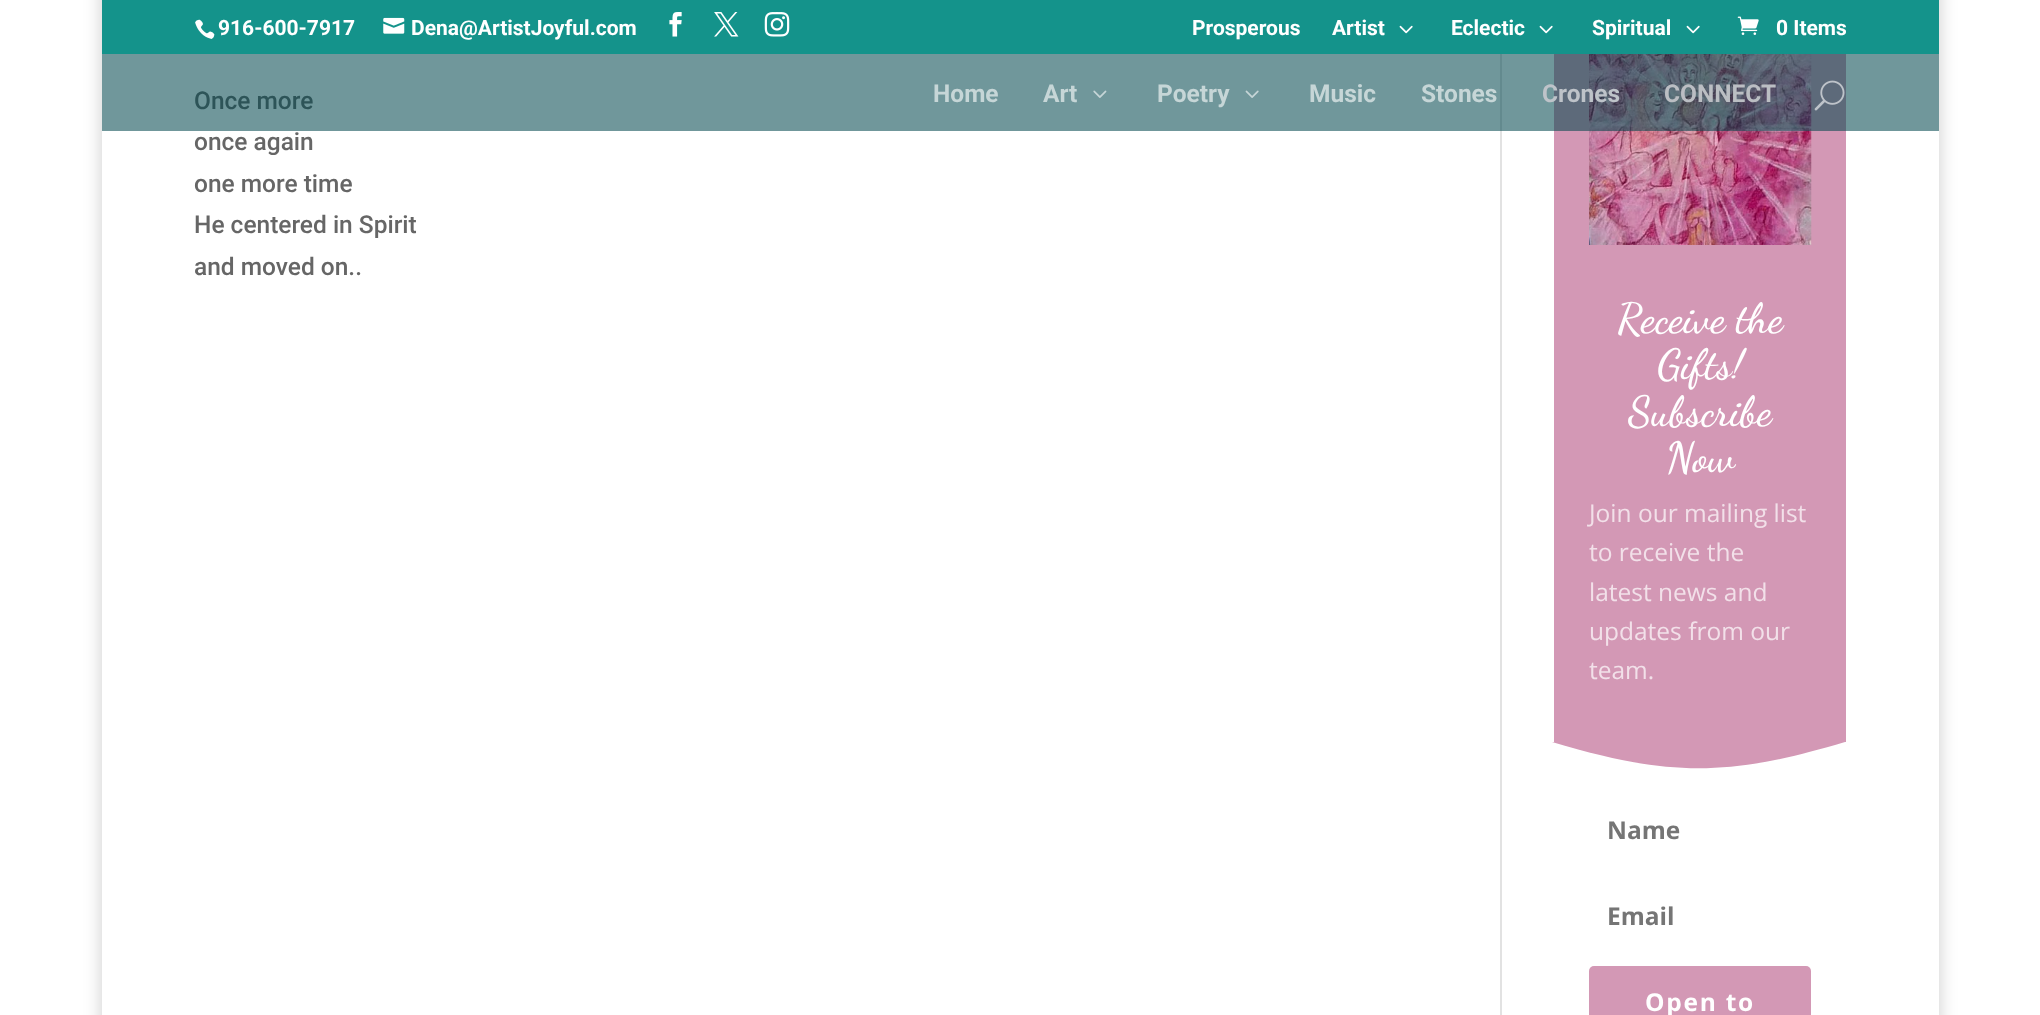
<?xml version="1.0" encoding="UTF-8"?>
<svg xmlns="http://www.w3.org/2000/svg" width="2040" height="1015">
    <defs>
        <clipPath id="clip1"><path d="M 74 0 H 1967 V 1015 H 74 Z M 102 -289 H 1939 V 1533 H 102 Z" clip-rule="evenodd"/></clipPath>
        <filter id="blur1" x="-50%" y="-200%" width="200%" height="500%"><feGaussianBlur stdDeviation="9"/></filter>
    </defs>
    <rect width="100%" height="100%" fill="#FFFFFF"/>
    <g clip-path="url(#clip1)">
        <rect x="102" y="-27" width="1837" height="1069" fill="#000000" fill-opacity="0.2" filter="url(#blur1)"/>
    </g>
    <rect x="102" y="0" width="1837" height="54" fill="#14938B"/>
    <image x="195" y="19" width="20" height="20" href="img_01.png"/>
    <text x="218" y="35" font-family="Roboto" font-size="21" font-weight="700" fill="#FFFFFF">916-600-7917</text>
    <image x="383" y="17" width="22" height="17" href="img_02.png"/>
    <text x="411" y="35" font-family="Roboto" font-size="21" font-weight="700" fill="#FFFFFF">Dena@ArtistJoyful.com</text>
    <image x="669" y="12" width="13" height="25" href="img_03.png"/>
    <image x="714" y="12" width="25" height="25" href="img_04.png"/>
    <image x="764" y="12" width="26" height="25" href="img_05.png"/>
    <text x="1192" y="35" font-family="Roboto" font-size="21" font-weight="700" fill="#FFFFFF">Prosperous</text>
    <text x="1332" y="35" font-family="Roboto" font-size="21" font-weight="700" fill="#FFFFFF">Artist</text>
    <image x="1399" y="25" width="14" height="9" href="img_06.png"/>
    <text x="1451" y="35" font-family="Roboto" font-size="21" font-weight="700" fill="#FFFFFF">Eclectic</text>
    <image x="1539" y="25" width="14" height="9" href="img_06.png"/>
    <text x="1592" y="35" font-family="Roboto" font-size="21" font-weight="700" fill="#FFFFFF">Spiritual</text>
    <image x="1686" y="25" width="14" height="9" href="img_06.png"/>
    <image x="1737" y="16" width="22" height="19" href="img_07.png"/>
    <text x="1776" y="35" font-family="Roboto" font-size="21" font-weight="700" fill="#FFFFFF">0 Items</text>
    <rect x="1500" y="54" width="2" height="961" fill="#E2E2E2"/>
    <text x="194" y="109" font-family="Roboto" font-size="24.5" font-weight="500" fill="#666666">Once more</text>
    <rect x="1554" y="54" width="292" height="688" fill="#D398B5"/>
    <image x="1589" y="54" width="223" height="191" href="img_11.png"/>
    <rect x="102" y="54" width="1837" height="77" fill="#00464C" fill-opacity="0.56"/>
    <text x="933" y="102" font-family="Roboto" font-size="24.5" font-weight="700" fill="#C6D6D7">Home</text>
    <text x="1043" y="102" font-family="Roboto" font-size="24.5" font-weight="700" fill="#C6D6D7">Art</text>
    <image x="1093" y="90" width="14" height="8" href="img_08.png"/>
    <text x="1157" y="102" font-family="Roboto" font-size="24.5" font-weight="700" fill="#C6D6D7">Poetry</text>
    <image x="1245" y="90" width="14" height="8" href="img_09.png"/>
    <text x="1309" y="102" font-family="Roboto" font-size="24.5" font-weight="700" fill="#C6D6D7">Music</text>
    <text x="1421" y="102" font-family="Roboto" font-size="24.5" font-weight="700" fill="#C6D6D7">Stones</text>
    <text x="1542" y="102" font-family="Roboto" font-size="24.5" font-weight="700" fill="#BEC3C9">Crones</text>
    <text x="1664" y="102" font-family="Roboto" font-size="24.5" font-weight="700" fill="#BBBEC3">CONNECT</text>
    <image x="1814" y="80" width="31" height="31" href="img_10.png"/>
    <text font-family="Roboto" font-size="24.5" font-weight="500" fill="#666666">
        <tspan x="194" y="150">once again</tspan>
        <tspan x="194" y="192">one more time</tspan>
        <tspan x="194" y="233">He centered in Spirit</tspan>
        <tspan x="194" y="275">and moved on..</tspan>
    </text>
    <text x="1617" y="332" font-family="Dancing Script" font-size="42" font-weight="600" fill="#FFFFFF">Receive the</text>
    <text x="1657" y="378" font-family="Dancing Script" font-size="42" font-weight="600" fill="#FFFFFF">Gifts!</text>
    <text x="1628" y="425" font-family="Dancing Script" font-size="42" font-weight="600" fill="#FFFFFF">Subscribe</text>
    <text x="1666" y="471" font-family="Dancing Script" font-size="42" font-weight="600" fill="#FFFFFF">Now</text>
    <text font-family="Open Sans" font-size="24.5" fill="#F2E0E9">
        <tspan x="1589" y="522">Join our mailing list</tspan>
        <tspan x="1589" y="561">to receive the</tspan>
        <tspan x="1589" y="601">latest news and</tspan>
        <tspan x="1589" y="640">updates from our</tspan>
        <tspan x="1589" y="679">team.</tspan>
    </text>
    <path d="M 1552 742 C 1669 777 1728 777 1845 742 Z" fill="#D398B5"/>
    <text x="1607" y="839" font-family="Open Sans" font-size="24.5" font-weight="700" fill="#757575">Name</text>
    <text x="1607" y="925" font-family="Open Sans" font-size="24.5" font-weight="700" fill="#757575">Email</text>
    <rect x="1589" y="966" width="222" height="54" rx="5" fill="#D398B5"/>
    <text x="1645" y="1011" font-family="Open Sans" font-size="24.5" font-weight="700" letter-spacing="1.75" fill="#FFFFFF">Open to</text>
</svg>
